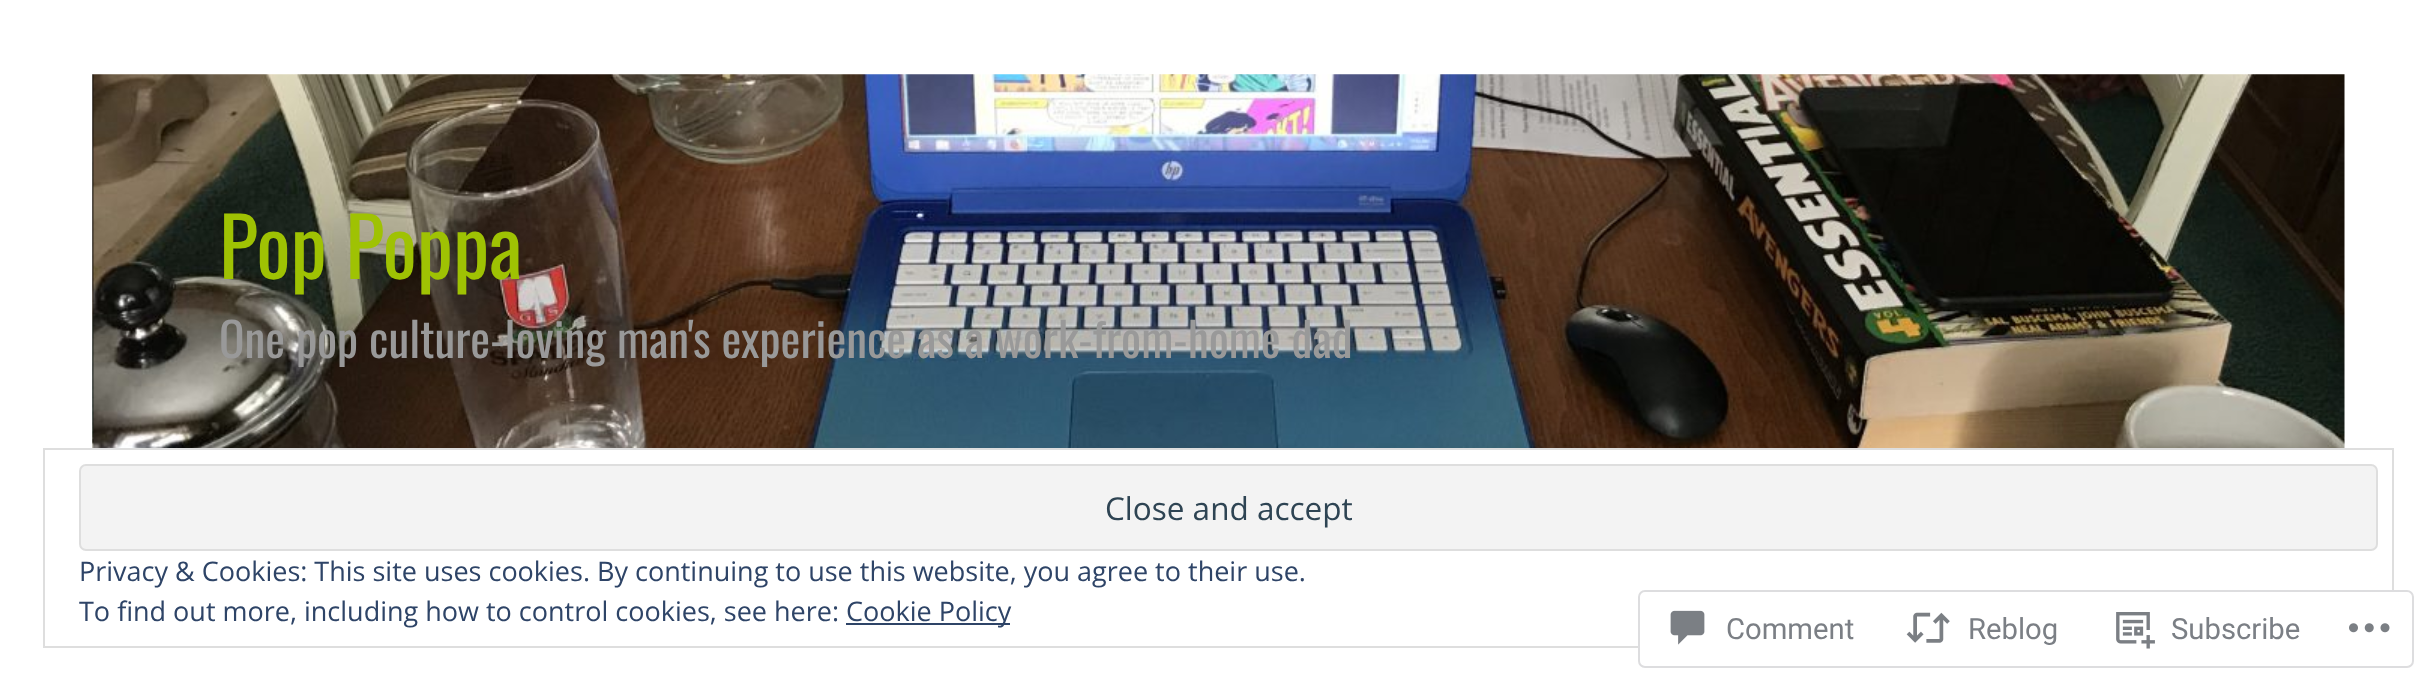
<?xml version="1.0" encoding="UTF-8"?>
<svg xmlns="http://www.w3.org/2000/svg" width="2436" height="689">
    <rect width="100%" height="100%" fill="#FFFFFF"/>
    <image x="92" y="74" width="2253" height="374" href="img_01.png"/>
    <text x="219" y="279" font-family="Oswald" font-size="81" fill="#9FC203">Pop Poppa</text>
    <text x="219" y="358" font-family="Oswald" font-size="47.25" fill="#999999">One pop culture-loving man's experience as a work-from-home dad</text>
    <rect x="44" y="449" width="2349" height="198" fill="none" stroke="#DEDEDE" stroke-width="2"/>
    <rect x="80" y="465" width="2297" height="85" rx="6" fill="#F3F3F3" stroke="#DEDEDE" stroke-width="2"/>
    <text x="1105" y="520" font-family="Open Sans" font-size="31.5" fill="#2E4453">Close and accept</text>
    <text font-family="Open Sans" font-size="27" fill="#2E4467">
        <tspan x="79" y="581">Privacy &amp; Cookies: This site uses cookies. By continuing to use this website, you agree to their use.</tspan>
        <tspan x="79" y="621">To find out more, including how to control cookies, see here:</tspan>
    </text>
    <rect x="846" y="623" width="164" height="2" fill="#2E4467"/>
    <text x="846" y="621" font-family="Open Sans" font-size="27" fill="#2E4467">Cookie Policy</text>
    <rect x="1639" y="591" width="774" height="76" rx="6" fill="#FFFFFF" fill-opacity="0.98" stroke="#DDDDDF" stroke-width="2"/>
    <image x="1670" y="610" width="35" height="35" href="img_02.png"/>
    <text x="1726" y="639" font-family="Roboto" font-size="29.25" fill="#7B7F85">Comment</text>
    <image x="1906" y="612" width="44" height="31" href="img_03.png"/>
    <text x="1968" y="639" font-family="Roboto" font-size="29.25" fill="#7B7F85">Reblog</text>
    <image x="2116" y="612" width="39" height="37" href="img_04.png"/>
    <text x="2171" y="639" font-family="Roboto" font-size="29.25" fill="#7B7F85">Subscribe</text>
    <image x="2349" y="623" width="41" height="10" href="img_05.png"/>
</svg>
